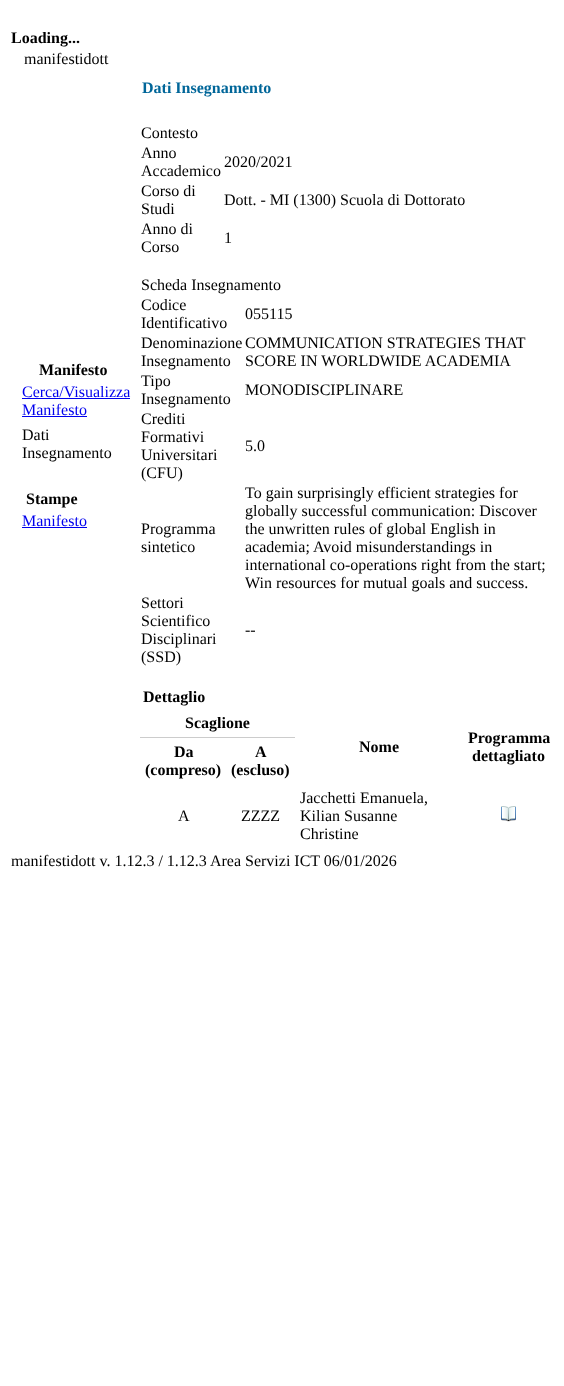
<?xml version="1.0" encoding="UTF-8"?>
<svg xmlns="http://www.w3.org/2000/svg" width="564" height="1386">
    <rect width="100%" height="100%" fill="#FFFFFF"/>
    <text x="11" y="43" font-family="Liberation Serif" font-size="16" font-weight="700" fill="#000000">Loading...</text>
    <text x="24" y="64" font-family="Liberation Serif" font-size="16" fill="#000000">manifestidott</text>
    <text x="39" y="375" font-family="Liberation Serif" font-size="16" font-weight="700" fill="#000000">Manifesto</text>
    <text x="22" y="397" font-family="Liberation Serif" font-size="16" fill="#0000EE">Cerca/Visualizza</text>
    <rect x="22" y="398" width="108" height="1" fill="#0000EE"/>
    <text x="22" y="415" font-family="Liberation Serif" font-size="16" fill="#0000EE">Manifesto</text>
    <rect x="22" y="416" width="65" height="1" fill="#0000EE"/>
    <text font-family="Liberation Serif" font-size="16" fill="#000000">
        <tspan x="22" y="440">Dati</tspan>
        <tspan x="22" y="458">Insegnamento</tspan>
    </text>
    <text x="26" y="504" font-family="Liberation Serif" font-size="16" font-weight="700" fill="#000000">Stampe</text>
    <text x="22" y="526" font-family="Liberation Serif" font-size="16" fill="#0000EE">Manifesto</text>
    <rect x="22" y="527" width="65" height="1" fill="#0000EE"/>
    <text x="142" y="93" font-family="Liberation Serif" font-size="16" font-weight="700" fill="#006699">Dati Insegnamento</text>
    <text font-family="Liberation Serif" font-size="16" fill="#000000">
        <tspan x="141" y="138">Contesto</tspan>
        <tspan x="141" y="158">Anno</tspan>
        <tspan x="141" y="176">Accademico</tspan>
    </text>
    <text x="224" y="167" font-family="Liberation Serif" font-size="16" fill="#000000">2020/2021</text>
    <text font-family="Liberation Serif" font-size="16" fill="#000000">
        <tspan x="141" y="196">Corso di</tspan>
        <tspan x="141" y="214">Studi</tspan>
    </text>
    <text x="224" y="205" font-family="Liberation Serif" font-size="16" fill="#000000">Dott. - MI (1300) Scuola di Dottorato</text>
    <text font-family="Liberation Serif" font-size="16" fill="#000000">
        <tspan x="141" y="234">Anno di</tspan>
        <tspan x="141" y="252">Corso</tspan>
    </text>
    <text x="224" y="243" font-family="Liberation Serif" font-size="16" fill="#000000">1</text>
    <text font-family="Liberation Serif" font-size="16" fill="#000000">
        <tspan x="141" y="290">Scheda Insegnamento</tspan>
        <tspan x="141" y="310">Codice</tspan>
        <tspan x="141" y="328">Identificativo</tspan>
    </text>
    <text x="245" y="319" font-family="Liberation Serif" font-size="16" fill="#000000">055115</text>
    <text font-family="Liberation Serif" font-size="16" fill="#000000">
        <tspan x="141" y="348">Denominazione</tspan>
        <tspan x="141" y="366">Insegnamento</tspan>
    </text>
    <text font-family="Liberation Serif" font-size="16" fill="#000000">
        <tspan x="245" y="348">COMMUNICATION STRATEGIES THAT</tspan>
        <tspan x="245" y="366">SCORE IN WORLDWIDE ACADEMIA</tspan>
    </text>
    <text font-family="Liberation Serif" font-size="16" fill="#000000">
        <tspan x="141" y="386">Tipo</tspan>
        <tspan x="141" y="404">Insegnamento</tspan>
    </text>
    <text x="245" y="395" font-family="Liberation Serif" font-size="16" fill="#000000">MONODISCIPLINARE</text>
    <text font-family="Liberation Serif" font-size="16" fill="#000000">
        <tspan x="141" y="424">Crediti</tspan>
        <tspan x="141" y="442">Formativi</tspan>
        <tspan x="141" y="460">Universitari</tspan>
        <tspan x="141" y="478">(CFU)</tspan>
    </text>
    <text x="245" y="451" font-family="Liberation Serif" font-size="16" fill="#000000">5.0</text>
    <text font-family="Liberation Serif" font-size="16" fill="#000000">
        <tspan x="141" y="534">Programma</tspan>
        <tspan x="141" y="552">sintetico</tspan>
    </text>
    <text font-family="Liberation Serif" font-size="16" fill="#000000">
        <tspan x="245" y="498">To gain surprisingly efficient strategies for</tspan>
        <tspan x="245" y="516">globally successful communication: Discover</tspan>
        <tspan x="245" y="534">the unwritten rules of global English in</tspan>
        <tspan x="245" y="552">academia;</tspan>
    </text>
    <text x="313" y="552" font-family="Liberation Serif" font-size="16" fill="#000000">Avoid misunderstandings in</text>
    <text font-family="Liberation Serif" font-size="16" fill="#000000">
        <tspan x="245" y="570">international co-operations right from the start;</tspan>
        <tspan x="245" y="588">Win resources for mutual goals and success.</tspan>
    </text>
    <text font-family="Liberation Serif" font-size="16" fill="#000000">
        <tspan x="141" y="608">Settori</tspan>
        <tspan x="141" y="626">Scientifico</tspan>
        <tspan x="141" y="644">Disciplinari</tspan>
        <tspan x="141" y="662">(SSD)</tspan>
    </text>
    <text x="245" y="635" font-family="Liberation Serif" font-size="16" fill="#000000">--</text>
    <text x="143" y="702" font-family="Liberation Serif" font-size="16" font-weight="700" fill="#000000">Dettaglio</text>
    <rect x="140" y="737" width="155" height="1" fill="#CCCCCC"/>
    <text x="185" y="728" font-family="Liberation Serif" font-size="16" font-weight="700" fill="#000000">Scaglione</text>
    <text x="359" y="752" font-family="Liberation Serif" font-size="16" font-weight="700" fill="#000000">Nome</text>
    <text x="468" y="743" font-family="Liberation Serif" font-size="16" font-weight="700" fill="#000000">Programma</text>
    <text x="472" y="761" font-family="Liberation Serif" font-size="16" font-weight="700" fill="#000000">dettagliato</text>
    <text x="174" y="757" font-family="Liberation Serif" font-size="16" font-weight="700" fill="#000000">Da</text>
    <text x="145" y="775" font-family="Liberation Serif" font-size="16" font-weight="700" fill="#000000">(compreso)</text>
    <text x="255" y="757" font-family="Liberation Serif" font-size="16" font-weight="700" fill="#000000">A</text>
    <text x="231" y="775" font-family="Liberation Serif" font-size="16" font-weight="700" fill="#000000">(escluso)</text>
    <text x="178" y="821" font-family="Liberation Serif" font-size="16" fill="#000000">A</text>
    <text x="241" y="821" font-family="Liberation Serif" font-size="16" fill="#000000">ZZZZ</text>
    <text font-family="Liberation Serif" font-size="16" fill="#000000">
        <tspan x="300" y="803">Jacchetti Emanuela,</tspan>
        <tspan x="300" y="821">Kilian Susanne</tspan>
        <tspan x="300" y="839">Christine</tspan>
    </text>
    <image x="501" y="806" width="15" height="16" href="img_01.png"/>
    <text x="11" y="866" font-family="Liberation Serif" font-size="16" fill="#000000">manifestidott v. 1.12.3 / 1.12.3 Area Servizi ICT 06/01/2026</text>
</svg>
